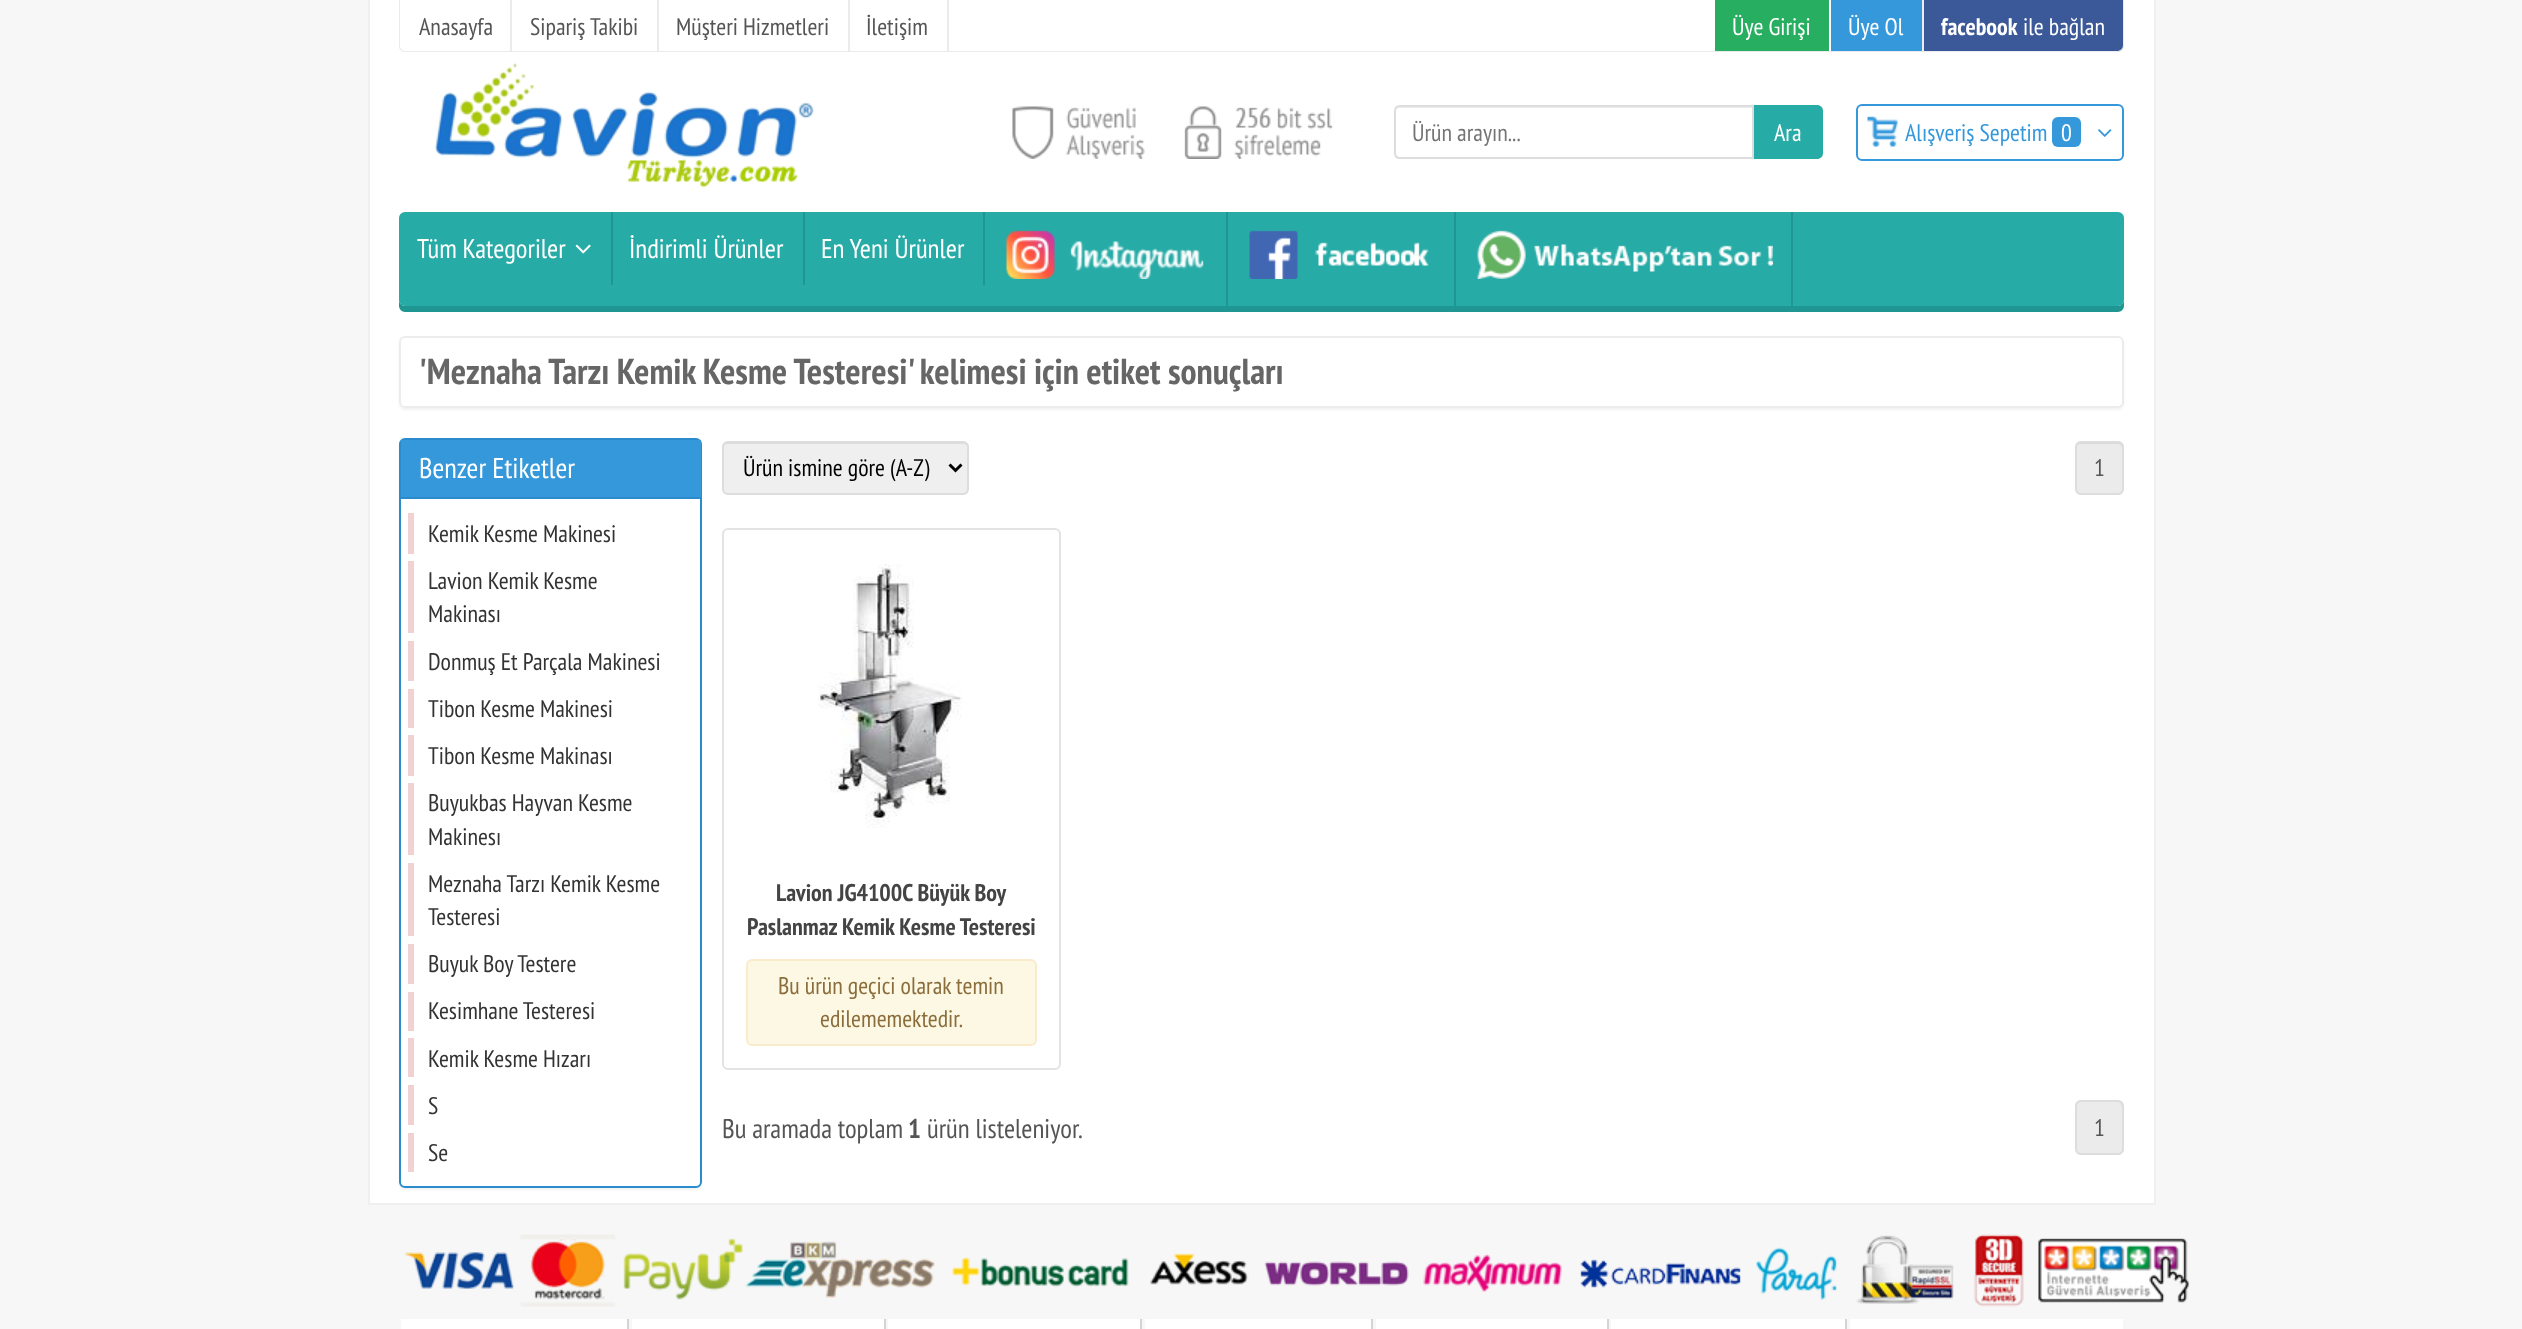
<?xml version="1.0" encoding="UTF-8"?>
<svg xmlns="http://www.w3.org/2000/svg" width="2522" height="1329">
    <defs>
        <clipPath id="clip1"><path d="M 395 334 H 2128 V 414 H 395 Z M 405 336 H 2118 C 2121.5 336 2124 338.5 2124 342 V 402 C 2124 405.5 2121.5 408 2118 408 H 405 C 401.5 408 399 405.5 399 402 V 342 C 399 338.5 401.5 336 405 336 Z" clip-rule="evenodd"/></clipPath>
        <filter id="blur1" x="-50%" y="-200%" width="200%" height="500%"><feGaussianBlur stdDeviation="1"/></filter>
        <clipPath id="clip2"><path d="M 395 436 H 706 V 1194 H 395 Z M 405 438 H 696 C 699.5 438 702 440.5 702 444 V 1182 C 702 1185.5 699.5 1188 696 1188 H 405 C 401.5 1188 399 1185.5 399 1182 V 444 C 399 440.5 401.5 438 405 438 Z" clip-rule="evenodd"/></clipPath>
    </defs>
    <rect width="100%" height="100%" fill="#F7F7F7"/>
    <rect x="370" y="0" width="1784" height="1203" fill="#FFFFFF"/>
    <rect x="2154" y="0" width="2" height="1203" fill="#F0F0F0"/>
    <rect x="368" y="0" width="2" height="1203" fill="#F0F0F0"/>
    <path d="M 399 0 H 2124 V 46 C 2124 50 2121 52 2118 52 H 405 C 402 52 399 50 399 46 Z M 400 0 H 2122 V 46 C 2122 49 2120 51 2118 51 H 405 C 403 51 400 49 400 46 Z" fill="#EBEBEB" fill-rule="evenodd"/>
    <rect x="510" y="0" width="2" height="51" fill="#EBEBEB"/>
    <text x="419" y="35" font-family="PT Sans Narrow" font-size="24" fill="#555555">Anasayfa</text>
    <rect x="657" y="0" width="2" height="51" fill="#EBEBEB"/>
    <text x="530" y="35" font-family="PT Sans Narrow" font-size="24" fill="#555555">Sipariş Takibi</text>
    <rect x="848" y="0" width="2" height="51" fill="#EBEBEB"/>
    <text x="676" y="35" font-family="PT Sans Narrow" font-size="24" fill="#555555">Müşteri Hizmetleri</text>
    <rect x="947" y="0" width="2" height="51" fill="#EBEBEB"/>
    <text x="866" y="35" font-family="PT Sans Narrow" font-size="24" fill="#555555">İletişim</text>
    <rect x="1715" y="0" width="114" height="51" fill="#27AE60"/>
    <text x="1732" y="35" font-family="PT Sans Narrow" font-size="24" fill="#FFFFFF">Üye Girişi</text>
    <rect x="1831" y="0" width="91" height="51" fill="#3498DB"/>
    <text x="1848" y="35" font-family="PT Sans Narrow" font-size="24" fill="#FFFFFF">Üye Ol</text>
    <path d="M 1922 0 H 2123 V 45 C 2123 48.5 2120.5 51 2117 51 H 1922 Z" fill="#3B5998"/>
    <rect x="1922" y="0" width="2" height="51" fill="#EBEBEB"/>
    <text x="1941" y="35" font-family="PT Sans Narrow" font-size="24" font-weight="700" fill="#FFFFFF">facebook</text>
    <text x="2023" y="35" font-family="PT Sans Narrow" font-size="24" fill="#FFFFFF">ile bağlan</text>
    <image x="434" y="62" width="380" height="126" href="img_01.png"/>
    <image x="1012" y="106" width="321" height="53" href="img_02.png"/>
    <path d="M 1400 108 H 1752 V 107 H 1400 C 1397 107 1395 109 1395 112 C 1395 110 1397 108 1400 108 Z" fill="#ECECEC"/>
    <path d="M 1400 106 H 1753 V 158 H 1400 C 1397 158 1395 156 1395 153 V 111 C 1395 108 1397 106 1400 106 Z" fill="none" stroke="#DDDDDD" stroke-width="2"/>
    <text x="1412" y="141" font-family="PT Sans Narrow" font-size="24" fill="#757575">Ürün arayın...</text>
    <path d="M 1754 105 H 1817 C 1820.5 105 1823 107.5 1823 111 V 153 C 1823 156.5 1820.5 159 1817 159 H 1754 Z" fill="#27ABA6"/>
    <text x="1774" y="141" font-family="PT Sans Narrow" font-size="24" fill="#FFFFFF">Ara</text>
    <image x="1867" y="116" width="31" height="31" href="img_03.png"/>
    <rect x="1857" y="105" width="266" height="55" rx="5" fill="none" stroke="#3498DB" stroke-width="2"/>
    <text x="1905" y="141" font-family="PT Sans Narrow" font-size="24" fill="#3498DB">Alışveriş Sepetim</text>
    <rect x="2052" y="117" width="29" height="30" rx="6" fill="#3498DB"/>
    <text x="2061" y="141" font-family="PT Sans Narrow" font-size="24" fill="#FFFFFF">0</text>
    <image x="2098" y="129" width="14" height="8" href="img_04.png"/>
    <rect x="399" y="212" width="1725" height="94" rx="6" fill="#27ABA6"/>
    <path d="M 399 300 V 306 C 399 309 402 312 405 312 H 2118 C 2121 312 2124 309 2124 306 V 300 C 2124 303 2121 306 2118 306 H 405 C 402 306 399 303 399 300 Z" fill="#1F9691"/>
    <rect x="611" y="212" width="2" height="73" fill="#1F9691"/>
    <text x="417" y="258" font-family="PT Sans Narrow" font-size="27" fill="#FFFFFF">Tüm Kategoriler</text>
    <image x="575" y="244" width="16" height="10" href="img_05.png"/>
    <rect x="803" y="212" width="2" height="73" fill="#1F9691"/>
    <text x="629" y="258" font-family="PT Sans Narrow" font-size="27" fill="#FFFFFF">İndirimli Ürünler</text>
    <rect x="983" y="212" width="2" height="73" fill="#1F9691"/>
    <text x="821" y="258" font-family="PT Sans Narrow" font-size="27" fill="#FFFFFF">En Yeni Ürünler</text>
    <rect x="1226" y="212" width="2" height="94" fill="#1F9691"/>
    <image x="1006" y="230" width="198" height="49" href="img_06.png"/>
    <rect x="1454" y="212" width="2" height="94" fill="#1F9691"/>
    <image x="1249" y="230" width="180" height="49" href="img_07.png"/>
    <rect x="1791" y="212" width="2" height="94" fill="#1F9691"/>
    <image x="1477" y="230" width="296" height="49" href="img_08.png"/>
    <g clip-path="url(#clip1)">
        <rect x="399" y="338" width="1725" height="72" rx="6" fill="#000000" fill-opacity="0.05" filter="url(#blur1)"/>
    </g>
    <rect x="400" y="337" width="1723" height="70" rx="5" fill="none" stroke="#ECECEC" stroke-width="2"/>
    <text x="419" y="384" font-family="PT Sans Narrow" font-size="36" font-weight="700" fill="#666666">'Meznaha Tarzı Kemik Kesme Testeresi' kelimesi için etiket sonuçları</text>
    <g clip-path="url(#clip2)">
        <rect x="399" y="440" width="303" height="750" rx="6" fill="#000000" fill-opacity="0.05" filter="url(#blur1)"/>
    </g>
    <rect x="400" y="439" width="301" height="748" rx="5" fill="none" stroke="#2B8CCD" stroke-width="2"/>
    <rect x="401" y="440" width="300" height="57" fill="#3498DB"/>
    <rect x="401" y="497" width="300" height="2" fill="#2B8CCD"/>
    <text x="419" y="478" font-family="PT Sans Narrow" font-size="28.5" fill="#FFFFFF">Benzer Etiketler</text>
    <rect x="408" y="513" width="6" height="41" fill="#F1D1D1"/>
    <text x="428" y="542" font-family="PT Sans Narrow" font-size="24" fill="#333333">Kemik Kesme Makinesi</text>
    <rect x="408" y="561" width="6" height="72" fill="#F1D1D1"/>
    <text font-family="PT Sans Narrow" font-size="24" fill="#333333">
        <tspan x="428" y="589">Lavion Kemik Kesme</tspan>
        <tspan x="428" y="622">Makinası</tspan>
    </text>
    <rect x="408" y="641" width="6" height="40" fill="#F1D1D1"/>
    <text x="428" y="670" font-family="PT Sans Narrow" font-size="24" fill="#333333">Donmuş Et Parçala Makinesi</text>
    <rect x="408" y="689" width="6" height="39" fill="#F1D1D1"/>
    <text x="428" y="717" font-family="PT Sans Narrow" font-size="24" fill="#333333">Tibon Kesme Makinesi</text>
    <rect x="408" y="735" width="6" height="41" fill="#F1D1D1"/>
    <text x="428" y="764" font-family="PT Sans Narrow" font-size="24" fill="#333333">Tibon Kesme Makinası</text>
    <rect x="408" y="783" width="6" height="72" fill="#F1D1D1"/>
    <text font-family="PT Sans Narrow" font-size="24" fill="#333333">
        <tspan x="428" y="811">Buyukbas Hayvan Kesme</tspan>
        <tspan x="428" y="845">Makinesı</tspan>
    </text>
    <rect x="408" y="863" width="6" height="73" fill="#F1D1D1"/>
    <text font-family="PT Sans Narrow" font-size="24" fill="#333333">
        <tspan x="428" y="892">Meznaha Tarzı Kemik Kesme</tspan>
        <tspan x="428" y="925">Testeresi</tspan>
    </text>
    <rect x="408" y="944" width="6" height="40" fill="#F1D1D1"/>
    <text x="428" y="972" font-family="PT Sans Narrow" font-size="24" fill="#333333">Buyuk Boy Testere</text>
    <rect x="408" y="992" width="6" height="39" fill="#F1D1D1"/>
    <text x="428" y="1019" font-family="PT Sans Narrow" font-size="24" fill="#333333">Kesimhane Testeresi</text>
    <rect x="408" y="1038" width="6" height="39" fill="#F1D1D1"/>
    <text x="428" y="1067" font-family="PT Sans Narrow" font-size="24" fill="#333333">Kemik Kesme Hızarı</text>
    <rect x="408" y="1085" width="6" height="40" fill="#F1D1D1"/>
    <text x="428" y="1114" font-family="PT Sans Narrow" font-size="24" fill="#333333">S</text>
    <rect x="408" y="1133" width="6" height="39" fill="#F1D1D1"/>
    <text x="428" y="1161" font-family="PT Sans Narrow" font-size="24" fill="#333333">Se</text>
    <rect x="722" y="441" width="247" height="54" rx="6" fill="#EFEFEF"/>
    <path d="M 728 444 H 963 C 965 444 968 446 968 448 C 968 445 966 443 963 443 H 728 C 725 443 723 445 723 448 C 723 446 725 444 728 444 Z" fill="#DDDDDD"/>
    <rect x="723" y="442" width="245" height="52" rx="5" fill="none" stroke="#DDDDDD" stroke-width="2"/>
    <path d="M 949.5 464.5 L 955.5 470.5 L 961.5 464.5" fill="none" stroke="#000000" stroke-width="3"/>
    <text x="743" y="476" font-family="PT Sans Narrow" font-size="24" fill="#000000">Ürün ismine göre (A-Z)</text>
    <rect x="2075" y="441" width="49" height="54" rx="6" fill="#EBEBEB"/>
    <path d="M 2080 444 H 2118 C 2120 444 2122 446 2122 448 V 490 L 2121 493 C 2122 492 2123 490 2123 489 V 448 C 2123 445 2121 443 2118 443 H 2081 C 2078 443 2076 445 2076 448 C 2076 446 2078 444 2080 444 Z" fill="#D9D9D9"/>
    <rect x="2076" y="442" width="47" height="52" rx="5" fill="none" stroke="#DDDDDD" stroke-width="2"/>
    <text x="2094" y="476" font-family="PT Sans Narrow" font-size="24" fill="#555555">1</text>
    <rect x="723" y="529" width="337" height="540" rx="5" fill="none" stroke="#E3E3E3" stroke-width="2"/>
    <image x="818" y="564" width="144" height="264" href="img_09.png"/>
    <text x="776" y="901" font-family="PT Sans Narrow" font-size="24" font-weight="700" fill="#444444">Lavion JG4100C Büyük Boy</text>
    <text x="747" y="935" font-family="PT Sans Narrow" font-size="24" font-weight="700" fill="#444444">Paslanmaz Kemik Kesme Testeresi</text>
    <rect x="747" y="960" width="289" height="85" rx="5" fill="#FCF8E3" stroke="#FAEBCC" stroke-width="2"/>
    <text x="778" y="994" font-family="PT Sans Narrow" font-size="24" fill="#8A6D3B">Bu ürün geçici olarak temin</text>
    <text x="820" y="1027" font-family="PT Sans Narrow" font-size="24" fill="#8A6D3B">edilememektedir.</text>
    <text x="722" y="1138" font-family="PT Sans Narrow" font-size="27" fill="#555555">Bu aramada toplam</text>
    <text x="908" y="1138" font-family="PT Sans Narrow" font-size="27" font-weight="700" fill="#555555">1</text>
    <text x="927" y="1138" font-family="PT Sans Narrow" font-size="27" fill="#555555">ürün listeleniyor.</text>
    <rect x="2075" y="1100" width="49" height="55" rx="6" fill="#EBEBEB"/>
    <path d="M 2080 1102 H 2118 C 2120 1102 2122 1105 2122 1107 V 1150 L 2121 1153 C 2124 1150 2123 1145 2123 1142 V 1128 C 2123 1098 2128 1101 2100 1101 H 2087 C 2082 1101 2076 1100 2076 1107 C 2076 1105 2078 1102 2080 1102 Z" fill="#D9D9D9"/>
    <rect x="2076" y="1101" width="47" height="53" rx="5" fill="none" stroke="#DDDDDD" stroke-width="2"/>
    <text x="2094" y="1136" font-family="PT Sans Narrow" font-size="24" fill="#555555">1</text>
    <rect x="368" y="1203" width="1788" height="2" fill="#F0F0F0"/>
    <image x="404" y="1234" width="1785" height="73" href="img_10.png"/>
    <rect x="401" y="1319" width="226" height="10" fill="#FFFFFF"/>
    <rect x="627" y="1319" width="2" height="10" fill="#D4D4D4"/>
    <rect x="632" y="1319" width="252" height="10" fill="#FFFFFF"/>
    <rect x="884" y="1319" width="2" height="10" fill="#D4D4D4"/>
    <rect x="888" y="1319" width="252" height="10" fill="#FFFFFF"/>
    <rect x="1140" y="1319" width="2" height="10" fill="#D4D4D4"/>
    <rect x="1145" y="1319" width="226" height="10" fill="#FFFFFF"/>
    <rect x="1371" y="1319" width="2" height="10" fill="#D4D4D4"/>
    <rect x="1376" y="1319" width="231" height="10" fill="#FFFFFF"/>
    <rect x="1607" y="1319" width="2" height="10" fill="#D4D4D4"/>
    <rect x="1611" y="1319" width="234" height="10" fill="#FFFFFF"/>
    <rect x="1845" y="1319" width="2" height="10" fill="#D4D4D4"/>
    <rect x="1850" y="1319" width="273" height="10" fill="#FFFFFF"/>
</svg>
